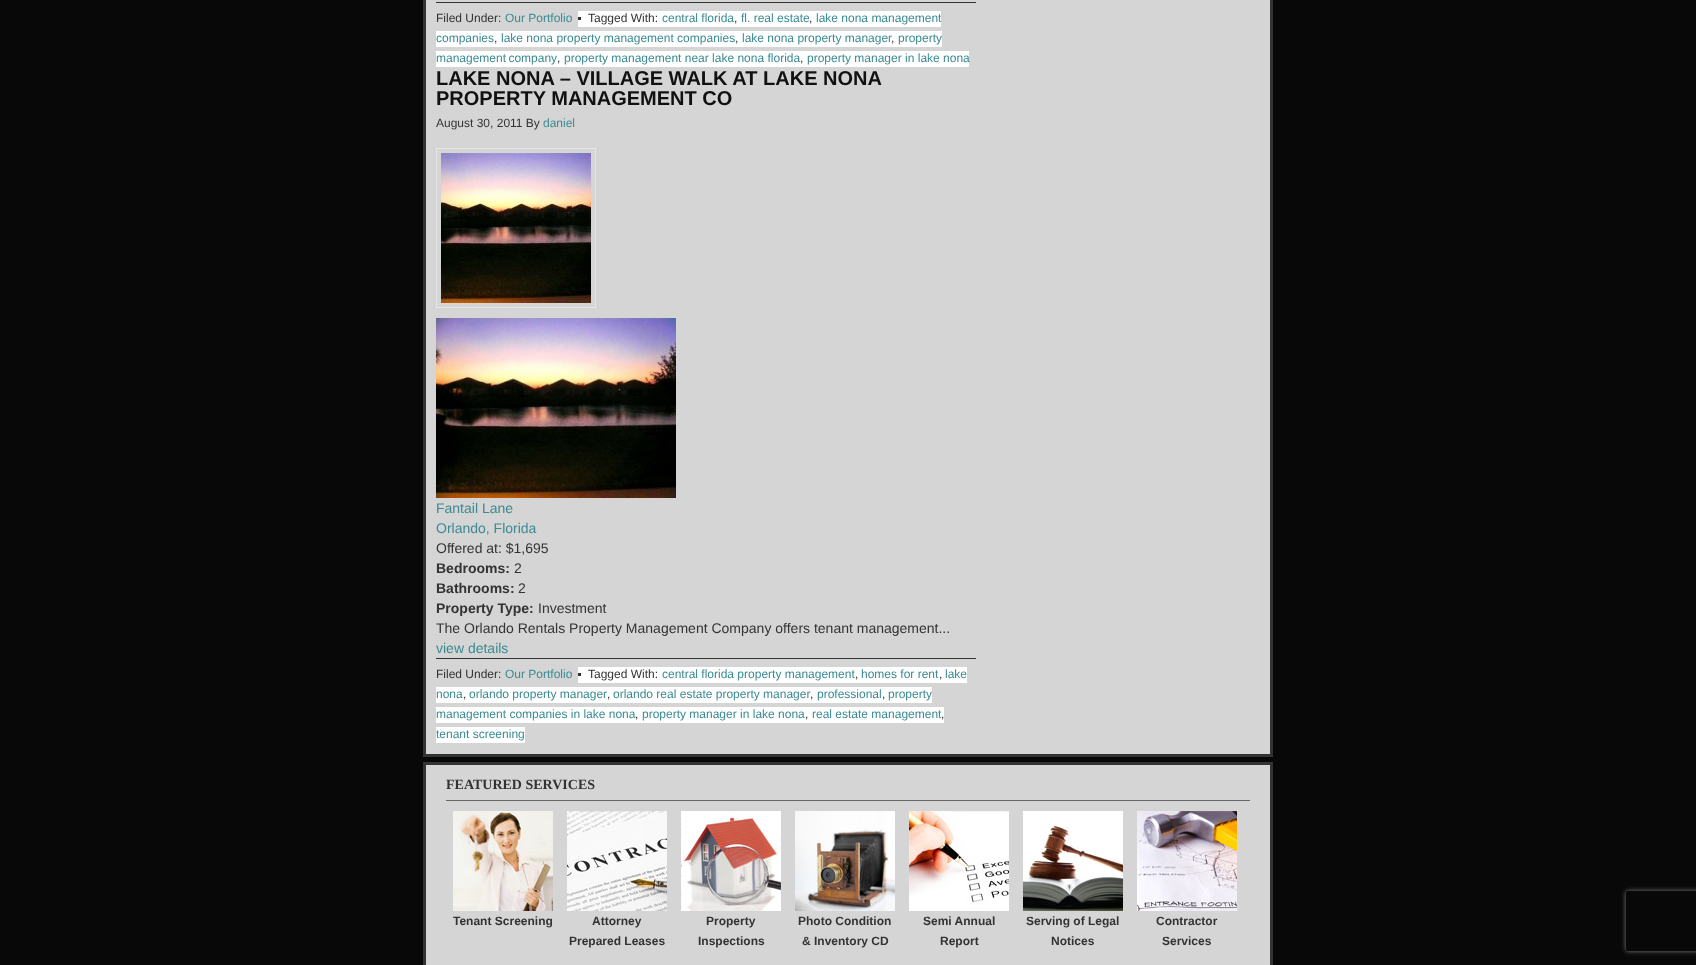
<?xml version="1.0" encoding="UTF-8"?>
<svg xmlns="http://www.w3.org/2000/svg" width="1696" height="965">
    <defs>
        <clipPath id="clip1"><path d="M 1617 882 H 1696 V 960 H 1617 Z M 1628 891 H 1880 C 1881 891 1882 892 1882 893 V 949 C 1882 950 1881 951 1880 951 H 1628 C 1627 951 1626 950 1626 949 V 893 C 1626 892 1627 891 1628 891 Z" clip-rule="evenodd"/></clipPath>
        <filter id="blur1" x="-50%" y="-200%" width="200%" height="500%"><feGaussianBlur stdDeviation="2.5"/></filter>
    </defs>
    <rect width="100%" height="100%" fill="#080808"/>
    <rect x="424.5" y="-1.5" width="847" height="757" fill="#D5D5D5" stroke="#333333" stroke-width="3"/>
    <rect x="436" y="2" width="540" height="1" fill="#333333"/>
    <text x="436" y="22" font-family="Liberation Sans" font-size="12" fill="#333333">Filed Under:</text>
    <text x="505" y="22" font-family="Liberation Sans" font-size="12" fill="#3A8A91">Our Portfolio</text>
    <rect x="578" y="11" width="363" height="16" fill="#FFFFFF"/>
    <text x="588" y="22" font-family="Liberation Sans" font-size="12" fill="#333333">Tagged With:</text>
    <rect x="578" y="17" width="3" height="3" fill="#333333"/>
    <text x="662" y="22" font-family="Liberation Sans" font-size="12" fill="#3A8A91">central florida</text>
    <text x="734" y="22" font-family="Liberation Sans" font-size="12" fill="#333333">,</text>
    <text x="741" y="22" font-family="Liberation Sans" font-size="12" fill="#3A8A91">fl. real estate</text>
    <text x="809" y="22" font-family="Liberation Sans" font-size="12" fill="#333333">,</text>
    <text x="816" y="22" font-family="Liberation Sans" font-size="12" fill="#3A8A91">lake nona management</text>
    <rect x="436" y="31" width="506" height="16" fill="#FFFFFF"/>
    <text x="436" y="42" font-family="Liberation Sans" font-size="12" fill="#3A8A91">companies</text>
    <text x="494" y="42" font-family="Liberation Sans" font-size="12" fill="#333333">,</text>
    <text x="501" y="42" font-family="Liberation Sans" font-size="12" fill="#3A8A91">lake nona property management companies</text>
    <text x="735" y="42" font-family="Liberation Sans" font-size="12" fill="#333333">,</text>
    <text x="742" y="42" font-family="Liberation Sans" font-size="12" fill="#3A8A91">lake nona property manager</text>
    <text x="891" y="42" font-family="Liberation Sans" font-size="12" fill="#333333">,</text>
    <text x="898" y="42" font-family="Liberation Sans" font-size="12" fill="#3A8A91">property</text>
    <rect x="436" y="51" width="533" height="16" fill="#FFFFFF"/>
    <text x="436" y="62" word-spacing="-1" font-family="Liberation Sans" font-size="12" fill="#3A8A91">management company</text>
    <text x="557" y="62" font-family="Liberation Sans" font-size="12" fill="#333333">,</text>
    <text x="564" y="62" font-family="Liberation Sans" font-size="12" fill="#3A8A91">property management near lake nona florida</text>
    <text x="800" y="62" font-family="Liberation Sans" font-size="12" fill="#333333">,</text>
    <text x="807" y="62" font-family="Liberation Sans" font-size="12" fill="#3A8A91">property manager in lake nona</text>
    <text font-family="Liberation Sans" font-size="20" font-weight="700" fill="#111111">
        <tspan x="436" y="85">LAKE NONA – VILLAGE WALK AT LAKE NONA</tspan>
        <tspan x="436" y="105">PROPERTY MANAGEMENT CO</tspan>
    </text>
    <text x="436" y="127" font-family="Liberation Sans" font-size="12" fill="#333333">August 30, 2011 By</text>
    <text x="543" y="127" font-family="Liberation Sans" font-size="12" fill="#3A8A91">daniel</text>
    <rect x="436.5" y="148.5" width="159" height="159" fill="none" stroke="#E6E6E6"/>
    <image x="441" y="153" width="150" height="150" href="img_01.png"/>
    <image x="436" y="318" width="240" height="180" href="img_02.png"/>
    <text font-family="Liberation Sans" font-size="14" fill="#3A8A91">
        <tspan x="436" y="513">Fantail Lane</tspan>
        <tspan x="436" y="533">Orlando, Florida</tspan>
    </text>
    <text x="436" y="553" font-family="Liberation Sans" font-size="14" fill="#333333">Offered at: $1,695</text>
    <text x="436" y="573" font-family="Liberation Sans" font-size="14" font-weight="700" fill="#333333">Bedrooms:</text>
    <text x="514" y="573" font-family="Liberation Sans" font-size="14" fill="#333333">2</text>
    <text x="436" y="593" font-family="Liberation Sans" font-size="14" font-weight="700" fill="#333333">Bathrooms:</text>
    <text x="518" y="593" font-family="Liberation Sans" font-size="14" fill="#333333">2</text>
    <text x="436" y="613" font-family="Liberation Sans" font-size="14" font-weight="700" fill="#333333">Property Type:</text>
    <text x="538" y="613" font-family="Liberation Sans" font-size="14" fill="#333333">Investment</text>
    <text x="436" y="633" font-family="Liberation Sans" font-size="14" fill="#333333">The Orlando Rentals Property Management Company offers tenant management...</text>
    <text x="436" y="653" font-family="Liberation Sans" font-size="14" fill="#3A8A91">view details</text>
    <rect x="436" y="658" width="540" height="1" fill="#333333"/>
    <text x="436" y="678" font-family="Liberation Sans" font-size="12" fill="#333333">Filed Under:</text>
    <text x="505" y="678" font-family="Liberation Sans" font-size="12" fill="#3A8A91">Our Portfolio</text>
    <rect x="578" y="667" width="389" height="16" fill="#FFFFFF"/>
    <text x="588" y="678" font-family="Liberation Sans" font-size="12" fill="#333333">Tagged With:</text>
    <rect x="578" y="673" width="3" height="3" fill="#333333"/>
    <text x="662" y="678" font-family="Liberation Sans" font-size="12" fill="#3A8A91">central florida property management</text>
    <text x="855" y="678" font-family="Liberation Sans" font-size="12" fill="#333333">,</text>
    <text x="861" y="678" font-family="Liberation Sans" font-size="12" fill="#3A8A91">homes for rent</text>
    <text x="939" y="678" font-family="Liberation Sans" font-size="12" fill="#333333">,</text>
    <text x="945" y="678" font-family="Liberation Sans" font-size="12" fill="#3A8A91">lake</text>
    <rect x="436" y="687" width="496" height="16" fill="#FFFFFF"/>
    <text x="436" y="698" font-family="Liberation Sans" font-size="12" fill="#3A8A91">nona</text>
    <text x="463" y="698" font-family="Liberation Sans" font-size="12" fill="#333333">,</text>
    <text x="469" y="698" font-family="Liberation Sans" font-size="12" fill="#3A8A91">orlando property manager</text>
    <text x="607" y="698" font-family="Liberation Sans" font-size="12" fill="#333333">,</text>
    <text x="613" y="698" font-family="Liberation Sans" font-size="12" fill="#3A8A91">orlando real estate property manager</text>
    <text x="810" y="698" font-family="Liberation Sans" font-size="12" fill="#333333">,</text>
    <text x="817" y="698" font-family="Liberation Sans" font-size="12" fill="#3A8A91">professional</text>
    <text x="882" y="698" font-family="Liberation Sans" font-size="12" fill="#333333">,</text>
    <text x="888" y="698" font-family="Liberation Sans" font-size="12" fill="#3A8A91">property</text>
    <rect x="436" y="707" width="508" height="16" fill="#FFFFFF"/>
    <text x="436" y="718" font-family="Liberation Sans" font-size="12" fill="#3A8A91">management companies in lake nona</text>
    <text x="635" y="718" font-family="Liberation Sans" font-size="12" fill="#333333">,</text>
    <text x="642" y="718" font-family="Liberation Sans" font-size="12" fill="#3A8A91">property manager in lake nona</text>
    <text x="805" y="718" font-family="Liberation Sans" font-size="12" fill="#333333">,</text>
    <text x="812" y="718" font-family="Liberation Sans" font-size="12" fill="#3A8A91">real estate management</text>
    <text x="941" y="718" font-family="Liberation Sans" font-size="12" fill="#333333">,</text>
    <rect x="436" y="727" width="89" height="16" fill="#FFFFFF"/>
    <text x="436" y="738" font-family="Liberation Sans" font-size="12" fill="#3A8A91">tenant screening</text>
    <rect x="424.5" y="763.5" width="847" height="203" fill="#D5D5D5" stroke="#333333" stroke-width="3"/>
    <rect x="446" y="800" width="804" height="1" fill="#666666"/>
    <text x="446" y="789" font-family="Liberation Serif" font-size="14" font-weight="700" fill="#333333">FEATURED SERVICES</text>
    <image x="453" y="811" width="100" height="100" href="img_03.png"/>
    <text x="453" y="925" font-family="Liberation Sans" font-size="12" font-weight="700" fill="#333333">Tenant Screening</text>
    <image x="567" y="811" width="100" height="100" href="img_04.png"/>
    <text x="592" y="925" font-family="Liberation Sans" font-size="12" font-weight="700" fill="#333333">Attorney</text>
    <text x="569" y="945" font-family="Liberation Sans" font-size="12" font-weight="700" fill="#333333">Prepared Leases</text>
    <image x="681" y="811" width="100" height="100" href="img_05.png"/>
    <text x="706" y="925" font-family="Liberation Sans" font-size="12" font-weight="700" fill="#333333">Property</text>
    <text x="698" y="945" font-family="Liberation Sans" font-size="12" font-weight="700" fill="#333333">Inspections</text>
    <image x="795" y="811" width="100" height="100" href="img_06.png"/>
    <text x="798" y="925" font-family="Liberation Sans" font-size="12" font-weight="700" fill="#333333">Photo Condition</text>
    <text x="802" y="945" font-family="Liberation Sans" font-size="12" font-weight="700" fill="#333333">&amp; Inventory CD</text>
    <image x="909" y="811" width="100" height="100" href="img_07.png"/>
    <text x="923" y="925" font-family="Liberation Sans" font-size="12" font-weight="700" fill="#333333">Semi Annual</text>
    <text x="940" y="945" font-family="Liberation Sans" font-size="12" font-weight="700" fill="#333333">Report</text>
    <image x="1023" y="811" width="100" height="100" href="img_08.png"/>
    <text x="1026" y="925" font-family="Liberation Sans" font-size="12" font-weight="700" fill="#333333">Serving of Legal</text>
    <text x="1051" y="945" font-family="Liberation Sans" font-size="12" font-weight="700" fill="#333333">Notices</text>
    <image x="1137" y="811" width="100" height="100" href="img_09.png"/>
    <text x="1156" y="925" font-family="Liberation Sans" font-size="12" font-weight="700" fill="#333333">Contractor</text>
    <text x="1162" y="945" font-family="Liberation Sans" font-size="12" font-weight="700" fill="#333333">Services</text>
    <g clip-path="url(#clip1)">
        <rect x="1626" y="891" width="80" height="60" rx="2" fill="#808080" filter="url(#blur1)"/>
    </g>
</svg>
